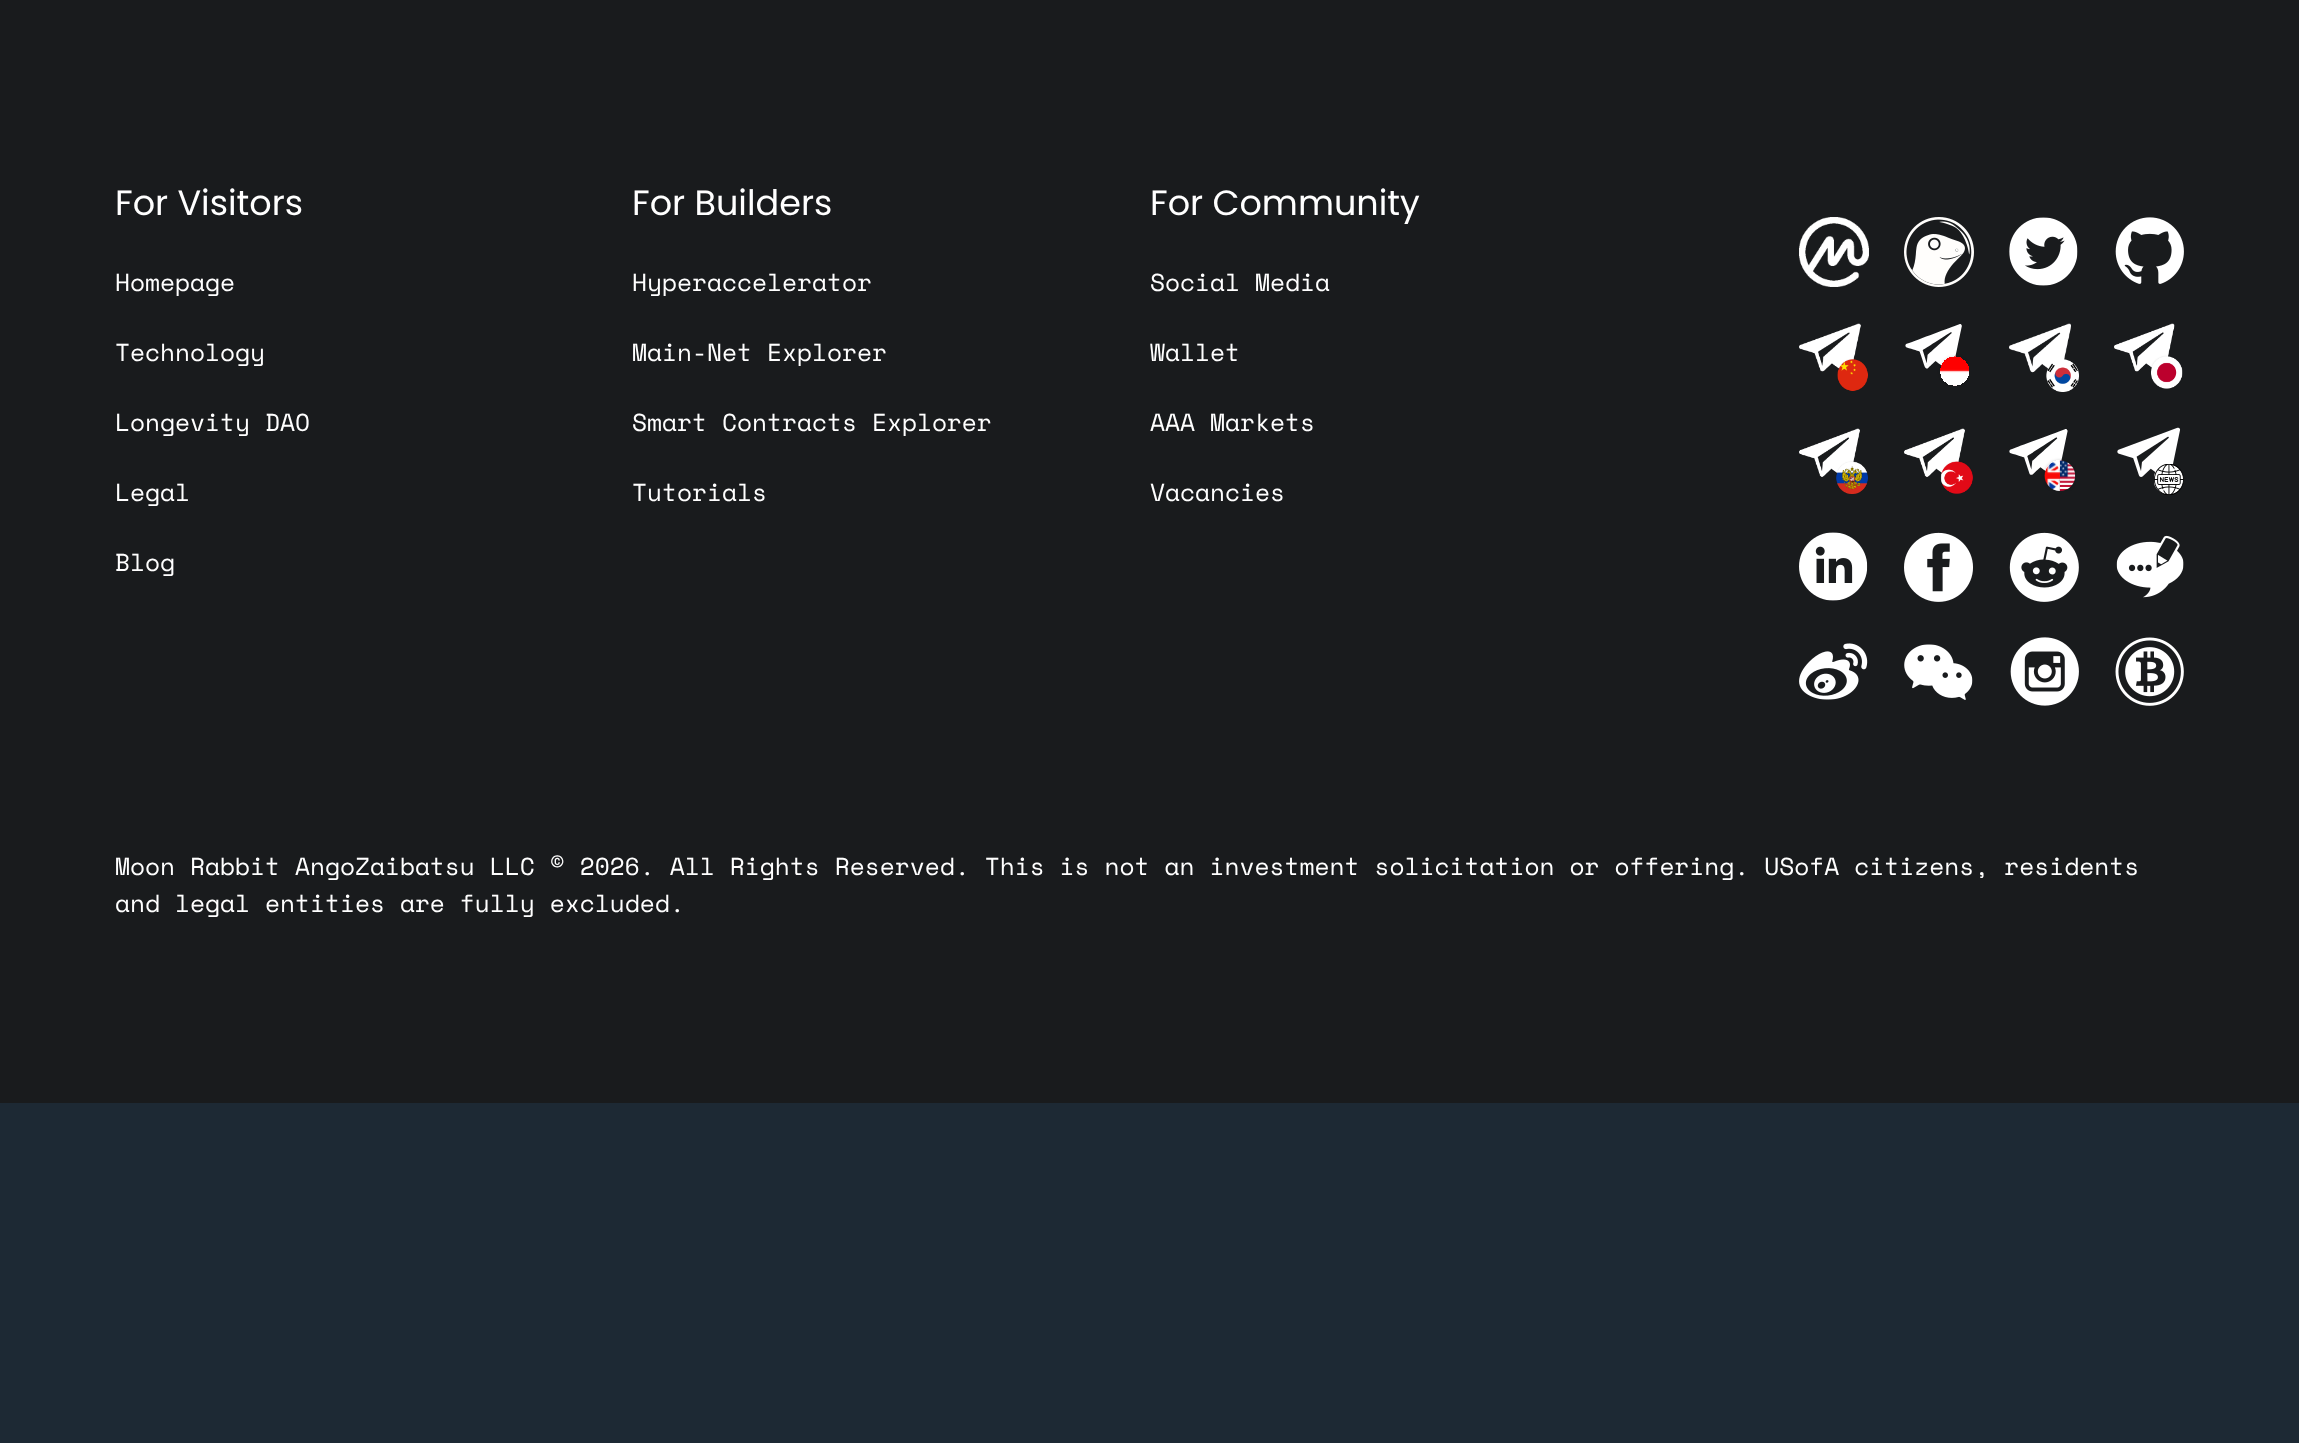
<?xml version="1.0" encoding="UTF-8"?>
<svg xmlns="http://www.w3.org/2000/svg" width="2299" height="1443">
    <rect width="100%" height="100%" fill="#1D2934"/>
    <rect x="0" y="0" width="2299" height="1103" fill="#191B1D"/>
    <text x="115" y="215" font-family="Poppins" font-size="35" fill="#FFFFFF">For Visitors</text>
    <text x="115" y="291" font-family="Space Mono" font-size="24.5" fill="#FFFFFF">Homepage</text>
    <text x="115" y="361" font-family="Space Mono" font-size="24.5" fill="#FFFFFF">Technology</text>
    <text x="115" y="431" font-family="Space Mono" font-size="24.5" fill="#FFFFFF">Longevity DAO</text>
    <text x="115" y="501" font-family="Space Mono" font-size="24.5" fill="#FFFFFF">Legal</text>
    <text x="115" y="571" font-family="Space Mono" font-size="24.5" fill="#FFFFFF">Blog</text>
    <text x="632" y="215" font-family="Poppins" font-size="35" fill="#FFFFFF">For Builders</text>
    <text x="632" y="291" font-family="Space Mono" font-size="24.5" fill="#FFFFFF">Hyperaccelerator</text>
    <text x="632" y="361" font-family="Space Mono" font-size="24.5" fill="#FFFFFF">Main-Net Explorer</text>
    <text x="632" y="431" font-family="Space Mono" font-size="24.5" fill="#FFFFFF">Smart Contracts Explorer</text>
    <text x="632" y="501" font-family="Space Mono" font-size="24.5" fill="#FFFFFF">Tutorials</text>
    <text x="1150" y="215" font-family="Poppins" font-size="35" fill="#FFFFFF">For Community</text>
    <text x="1150" y="291" font-family="Space Mono" font-size="24.5" fill="#FFFFFF">Social Media</text>
    <text x="1150" y="361" font-family="Space Mono" font-size="24.5" fill="#FFFFFF">Wallet</text>
    <text x="1150" y="431" font-family="Space Mono" font-size="24.5" fill="#FFFFFF">AAA Markets</text>
    <text x="1150" y="501" font-family="Space Mono" font-size="24.5" fill="#FFFFFF">Vacancies</text>
    <image x="1799" y="217" width="70" height="70" href="img_01.png"/>
    <image x="1904" y="217" width="70" height="70" href="img_02.png"/>
    <image x="2009" y="217" width="69" height="69" href="img_03.png"/>
    <image x="2115" y="217" width="69" height="67" href="img_04.png"/>
    <image x="1799" y="323" width="69" height="68" href="img_05.png"/>
    <image x="1905" y="324" width="64" height="62" href="img_06.png"/>
    <image x="2009" y="323" width="70" height="69" href="img_07.png"/>
    <image x="2114" y="323" width="69" height="66" href="img_08.png"/>
    <image x="1799" y="428" width="69" height="66" href="img_09.png"/>
    <image x="1904" y="428" width="69" height="66" href="img_10.png"/>
    <image x="2009" y="429" width="67" height="62" href="img_11.png"/>
    <image x="2117" y="427" width="67" height="68" href="img_12.png"/>
    <image x="1799" y="532" width="69" height="69" href="img_13.png"/>
    <image x="1904" y="532" width="69" height="70" href="img_14.png"/>
    <image x="2009" y="532" width="70" height="70" href="img_15.png"/>
    <image x="2116" y="535" width="68" height="63" href="img_16.png"/>
    <image x="1799" y="643" width="69" height="57" href="img_17.png"/>
    <image x="1904" y="644" width="69" height="56" href="img_18.png"/>
    <image x="2010" y="637" width="69" height="69" href="img_19.png"/>
    <image x="2115" y="637" width="69" height="69" href="img_20.png"/>
    <text font-family="Space Mono" font-size="24.5" fill="#FFFFFF">
        <tspan x="115" y="875">Moon Rabbit AngoZaibatsu LLC © 2026. All Rights Reserved. This is not an investment solicitation or offering. USofA citizens, residents</tspan>
        <tspan x="115" y="912">and legal entities are fully excluded.</tspan>
    </text>
</svg>
